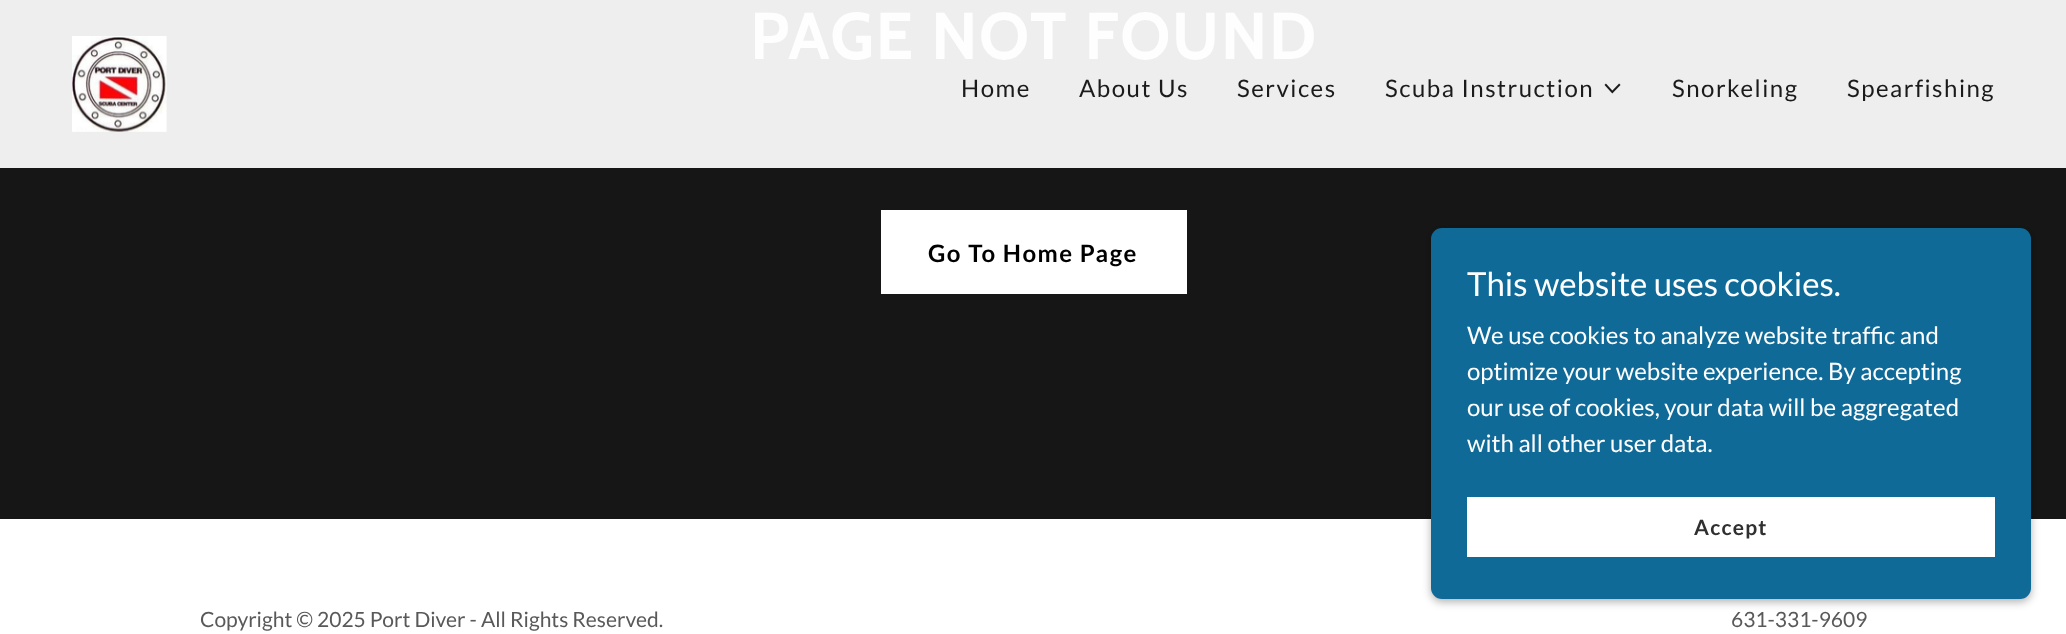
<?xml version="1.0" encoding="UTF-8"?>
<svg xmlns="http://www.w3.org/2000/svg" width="2066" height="634">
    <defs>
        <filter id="blur1" x="-50%" y="-200%" width="200%" height="500%"><feGaussianBlur stdDeviation="4.5"/></filter>
    </defs>
    <rect width="100%" height="100%" fill="#FFFFFF"/>
    <rect x="0" y="168" width="2066" height="351" fill="#161616"/>
    <rect x="0" y="0" width="2066" height="168" fill="#EEEEEE"/>
    <text x="750" y="59" font-family="Cabin" font-size="66" font-weight="700" letter-spacing="1.5" fill="#FEFEFE">PAGE NOT FOUND</text>
    <rect x="881" y="210" width="306" height="84" fill="#FFFFFF"/>
    <text x="928" y="262" font-family="Lato" font-size="24" font-weight="700" letter-spacing="1.5" fill="#000000">Go To Home Page</text>
    <image x="72" y="36" width="95" height="96" href="img_01.png"/>
    <text x="961" y="97" font-family="Lato" font-size="24" letter-spacing="1.5" fill="#1B1B1B">Home</text>
    <text x="1079" y="97" font-family="Lato" font-size="24" letter-spacing="1.5" fill="#1B1B1B">About Us</text>
    <text x="1237" y="97" font-family="Lato" font-size="24" letter-spacing="1.5" fill="#1B1B1B">Services</text>
    <text x="1385" y="97" font-family="Lato" font-size="24" letter-spacing="1.5" fill="#1B1B1B">Scuba Instruction</text>
    <image x="1604" y="83" width="17" height="11" href="img_02.png"/>
    <text x="1672" y="97" font-family="Lato" font-size="24" letter-spacing="1.5" fill="#1B1B1B">Snorkeling</text>
    <text x="1847" y="97" font-family="Lato" font-size="24" letter-spacing="1.5" fill="#1B1B1B">Spearfishing</text>
    <rect x="1431" y="231" width="600" height="371" rx="11" fill="#000000" fill-opacity="0.3" filter="url(#blur1)"/>
    <rect x="1431" y="228" width="600" height="371" rx="11" fill="#0F6A98"/>
    <text x="1467" y="296" font-family="Lato" font-size="33" fill="#FEFEFE">This website uses cookies.</text>
    <text font-family="Lato" font-size="24" fill="#FEFEFE">
        <tspan x="1467" y="344">We use cookies to analyze website traffic and</tspan>
        <tspan x="1467" y="380">optimize your website experience. By accepting</tspan>
        <tspan x="1467" y="416">our use of cookies, your data will be aggregated</tspan>
        <tspan x="1467" y="452">with all other user data.</tspan>
    </text>
    <rect x="1467" y="497" width="528" height="60" fill="#FFFFFF"/>
    <text x="1694" y="535" font-family="Lato" font-size="21" font-weight="700" letter-spacing="1.25" fill="#303030">Accept</text>
    <text x="200" y="627" font-family="Lato" font-size="21" fill="#595959">Copyright © 2025 Port Diver - All Rights Reserved.</text>
    <text x="1731" y="627" font-family="Lato" font-size="21" fill="#595959">631-331-9609</text>
</svg>
